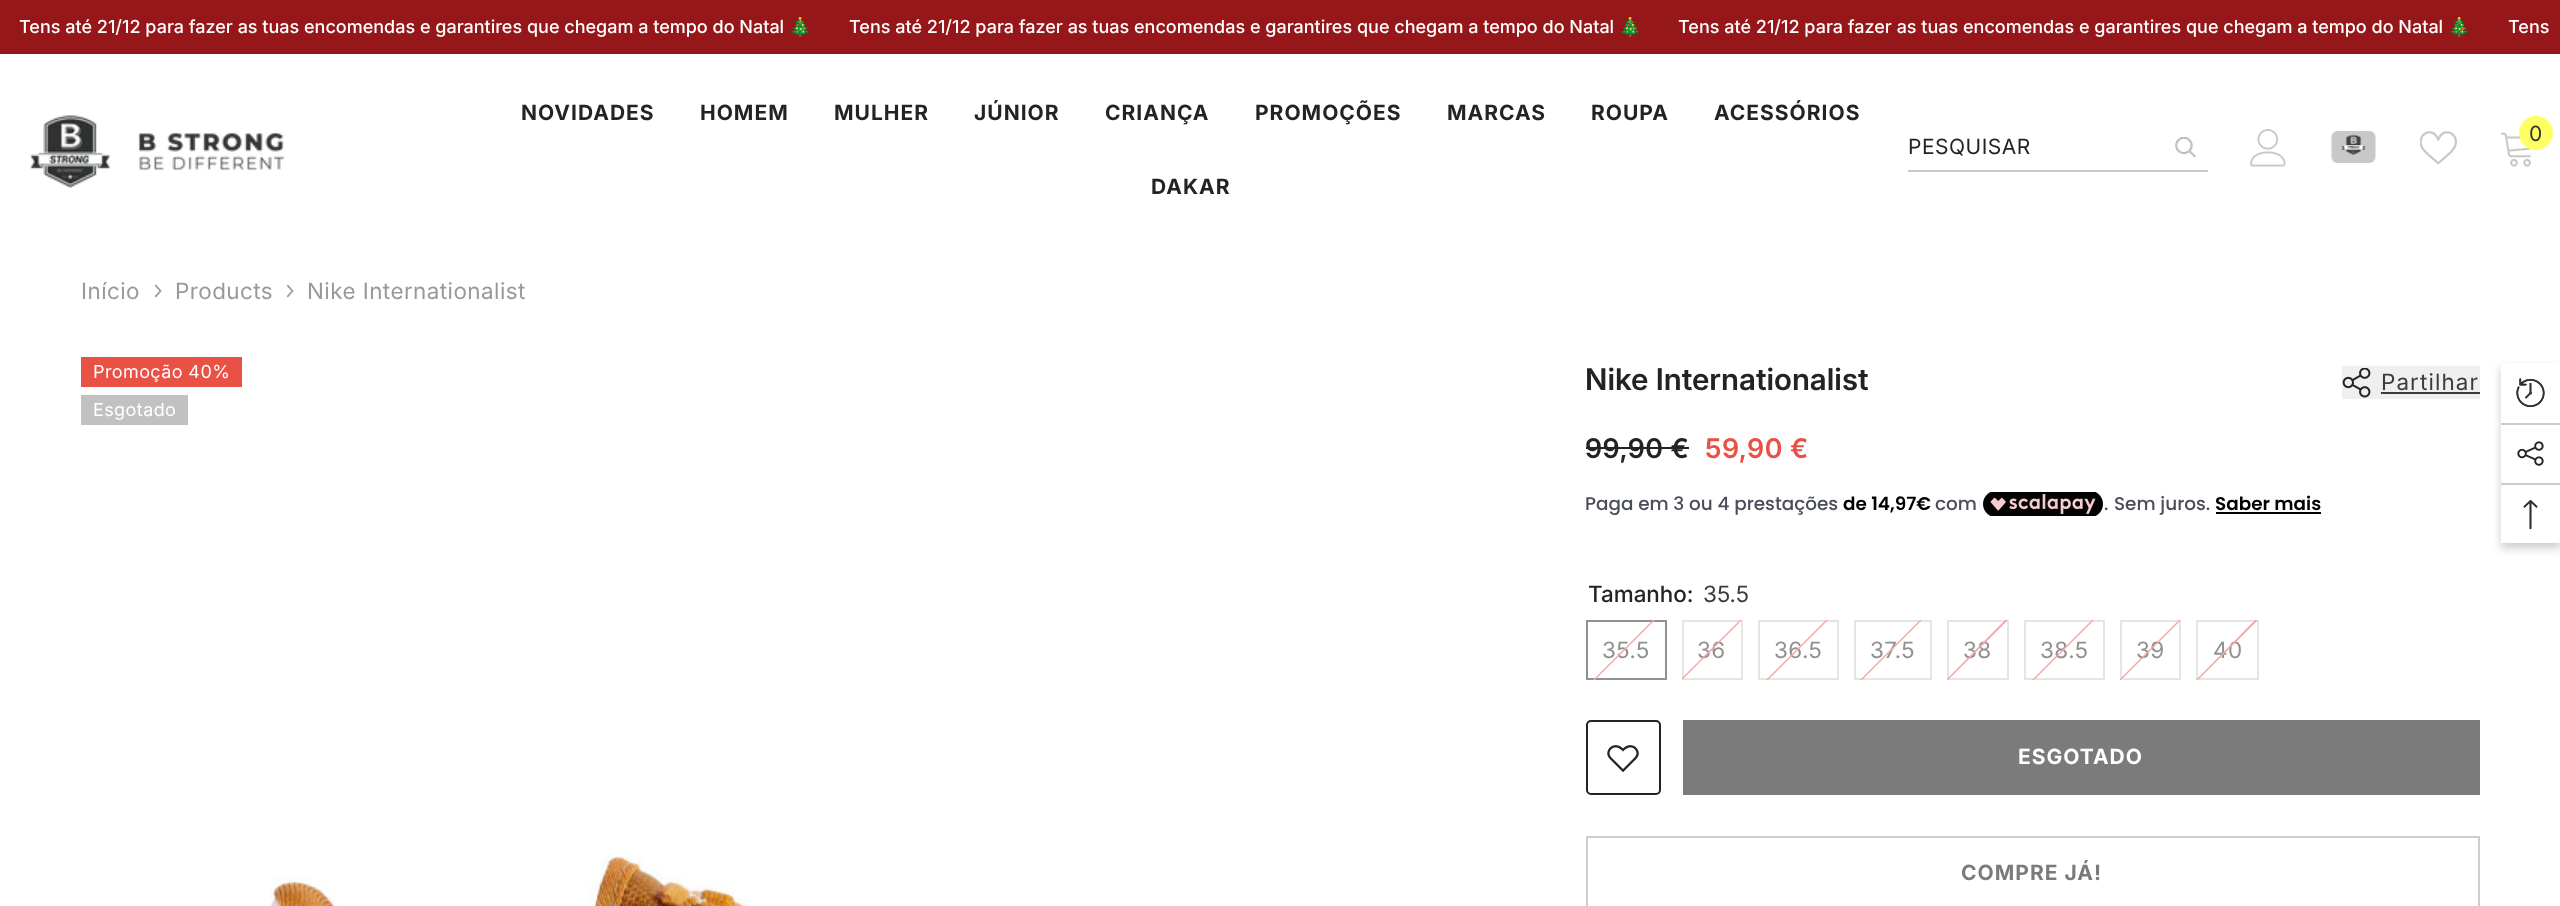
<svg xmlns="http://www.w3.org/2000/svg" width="2560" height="906">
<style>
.a{font:500 18px Inter;fill:#fff}
.b{font:18px Noto Color Emoji;fill:#fff}
.c{font:bold 21px Inter;letter-spacing:1px;fill:#232323}
.d{font:21px 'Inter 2';letter-spacing:0.5px;fill:#232323}
.e{font:21px 'Inter 2';fill:#323232}
.f{font:22.5px Inter;letter-spacing:0.45px;fill:#999}
.g{font:18px 'Inter 2';letter-spacing:0.4px;fill:#fff}
.h{font:600 30px Inter;fill:#232323}
.i{font:22.5px Inter;letter-spacing:1.1px;fill:#3c3c3c}
.j{font:600 27px 'Inter 2';letter-spacing:0.5px;fill:#232323}
.k{font:600 27px 'Inter 2';letter-spacing:0.5px;fill:#e95144}
.l{font:500 18.4px Poppins;fill:#4a4d5a}
.m{font:600 18.4px Poppins;fill:#000}
.n{font:500 22.5px 'Inter 2';fill:#232323}
.o{font:22.5px Inter;fill:#3c3c3c}
.p{font:22.5px Inter;letter-spacing:0.45px;fill:#919191}
.q{font:bold 21px Inter;letter-spacing:1px;fill:#fff}
.r{font:bold 21px Inter;letter-spacing:1px;fill:#7b7b7b}
</style>
<defs>
<clipPath id="clip1"><path d="M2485 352h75v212h-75zm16 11h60v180h-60z" clip-rule="evenodd"/></clipPath>
<clipPath id="clip2"><path d="M1586 620h81v60H1586z"/></clipPath>
<clipPath id="clip3"><path d="M1682 620h61v60H1682z"/></clipPath>
<clipPath id="clip4"><path d="M1758 620h81v60H1758z"/></clipPath>
<clipPath id="clip5"><path d="M1854 620h78v60H1854z"/></clipPath>
<clipPath id="clip6"><path d="M1947 620h62v60H1947z"/></clipPath>
<clipPath id="clip7"><path d="M2024 620h81v60H2024z"/></clipPath>
<clipPath id="clip8"><path d="M2120 620h61v60H2120z"/></clipPath>
<clipPath id="clip9"><path d="M2196 620h63v60H2196z"/></clipPath>
</defs>
<rect width="100%" height="100%" fill="#fff"/>
<path fill="#951719" d="M0 0h2560v54H0z"/>
<image href="1.png" x="30" y="115" width="255" height="73"/>
<path fill="#c8c8c8" d="M1908 170h300v2H1908z"/>
<image href="2.png" x="2175" y="137" width="21" height="21"/>
<image href="3.png" x="2250" y="129" width="36" height="38"/>
<image href="4.png" x="2331" y="131" width="45" height="32"/>
<image href="5.png" x="2420" y="131" width="37" height="34"/>
<image href="6.png" x="2500" y="132" width="31" height="35"/>
<circle fill="#ffff64" cx="2536" cy="133" r="17"/>
<image href="7.png" x="154" y="284" width="8" height="14"/>
<image href="7.png" x="286" y="284" width="8" height="14"/>
<path fill="#e95144" d="M81 357h161v30H81z"/>
<path fill="#c1c1c1" d="M81 395h107v30H81z"/>
<image href="8.png" x="270" y="855" width="478" height="51"/>
<path fill="#efefef" d="M2342 366h138v33H2342z"/>
<image href="9.png" x="2342" y="368" width="29" height="30"/>
<path fill="#3c3c3c" d="M2381 392h99v2H2381z"/>
<path fill="#232323" d="M1586 447h103v2H1586z"/>
<image href="10.png" x="1983" y="492" width="120" height="24"/>
<path fill="#000" d="M2216 512h105v2H2216z"/>
<path fill="none" stroke="#919191" stroke-width="2" d="M1587 621h79v58H1587z"/>
<path fill="none" stroke="#e5e5e5" stroke-width="2" d="M1683 621h59v58H1683z"/>
<path fill="none" stroke="#e5e5e5" stroke-width="2" d="M1759 621h79v58H1759z"/>
<path fill="none" stroke="#e5e5e5" stroke-width="2" d="M1855 621h76v58H1855z"/>
<path fill="none" stroke="#e5e5e5" stroke-width="2" d="M1948 621h60v58H1948z"/>
<path fill="none" stroke="#e5e5e5" stroke-width="2" d="M2025 621h79v58H2025z"/>
<path fill="none" stroke="#e5e5e5" stroke-width="2" d="M2121 621h59v58H2121z"/>
<path fill="none" stroke="#e5e5e5" stroke-width="2" d="M2197 621h61v58H2197z"/>
<rect fill="none" stroke="#232323" stroke-width="2" x="1587" y="721" width="73" height="73" rx="4"/>
<image href="11.png" x="1607" y="745" width="32" height="28"/>
<path fill="#7b7b7b" d="M1683 720h797v75H1683z"/>
<path fill="none" stroke="#cdcdcd" stroke-width="2" d="M1587 837h892v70H1587z"/>
<g clip-path="url(#clip1)">
<path fill="#00000033" filter="blur(5px)" d="M2501 368h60v180H2501z"/>
</g>
<image href="12.png" x="2516" y="378" width="29" height="30"/>
<path fill="#ccc" d="M2501 423h59v2H2501z"/>
<image href="13.png" x="2517" y="441" width="27" height="25"/>
<path fill="#ccc" d="M2501 483h59v2H2501z"/>
<image href="14.png" x="2523" y="500" width="15" height="30"/>
<text class="a" x="19" y="33">Tens até 21/12 para fazer as tuas encomendas e garantires que chegam a tempo do Natal</text>
<text class="b" x="789" y="33">🎄</text>
<text class="a" x="849" y="33">Tens até 21/12 para fazer as tuas encomendas e garantires que chegam a tempo do Natal</text>
<text class="b" x="1619" y="33">🎄</text>
<text class="a" x="1678" y="33">Tens até 21/12 para fazer as tuas encomendas e garantires que chegam a tempo do Natal</text>
<text class="b" x="2448" y="33">🎄</text>
<text class="a" x="2508" y="33">Tens</text>
<text class="c" x="521" y="120">NOVIDADES</text>
<text class="c" x="700" y="120">HOMEM</text>
<text class="c" x="834" y="120">MULHER</text>
<text class="c" x="974" y="120">JÚNIOR</text>
<text class="c" x="1105" y="120">CRIANÇA</text>
<text class="c" x="1255" y="120">PROMOÇÕES</text>
<text class="c" x="1447" y="120">MARCAS</text>
<text class="c" x="1591" y="120">ROUPA</text>
<text class="c" x="1714" y="120">ACESSÓRIOS</text>
<text class="c" x="1151" y="194">DAKAR</text>
<text class="d" x="1908" y="154">PESQUISAR</text>
<text class="e" x="2529" y="141">0</text>
<text class="f" x="81" y="299">Início</text>
<text class="f" x="175" y="299">Products</text>
<text class="f" x="307" y="299">Nike Internationalist</text>
<text class="g" x="93" y="378">Promoção 40%</text>
<text class="g" x="93" y="416">Esgotado</text>
<text class="h" x="1585" y="390">Nike Internationalist</text>
<text class="i" x="2381" y="390">Partilhar</text>
<text class="j" x="1585" y="458">99,90 €</text>
<text class="k" x="1705" y="458">59,90 €</text>
<text class="l" x="1585" y="510">Paga em 3 ou 4 prestações</text>
<text class="m" x="1843" y="510">de 14,97€</text>
<text class="l" x="1935" y="510">com</text>
<text class="l" x="2104" y="510">.</text>
<text class="l" x="2114" y="510">Sem juros.</text>
<text class="m" x="2215" y="510">Saber mais</text>
<text class="n" x="1588" y="602">Tamanho:</text>
<text class="o" x="1703" y="602">35.5</text>
<text class="p" x="1602" y="658">35.5</text>
<g clip-path="url(#clip2)">
<path fill="#f4a8a2" d="M1586 687l78-78l1 1l-78 78z"/>
</g>
<text class="p" x="1697" y="658">36</text>
<g clip-path="url(#clip3)">
<path fill="#f4a8a2" d="M1679 681l65-65l1 1l-65 65z"/>
</g>
<text class="p" x="1774" y="658">36.5</text>
<g clip-path="url(#clip4)">
<path fill="#f4a8a2" d="M1758 688l79-79l1 1l-79 79z"/>
</g>
<text class="p" x="1870" y="658">37.5</text>
<g clip-path="url(#clip5)">
<path fill="#f4a8a2" d="M1854 686l76-76l1 1l-76 76z"/>
</g>
<text class="p" x="1963" y="658">38</text>
<g clip-path="url(#clip6)">
<path fill="#f4a8a2" d="M1945 681l64-65l2 1l-65 65z"/>
</g>
<text class="p" x="2040" y="658">38.5</text>
<g clip-path="url(#clip7)">
<path fill="#f4a8a2" d="M2024 688l79-79l1 1l-79 79z"/>
</g>
<text class="p" x="2136" y="658">39</text>
<g clip-path="url(#clip8)">
<path fill="#f4a8a2" d="M2118 681l65-65l1 1l-65 65z"/>
</g>
<text class="p" x="2213" y="658">40</text>
<g clip-path="url(#clip9)">
<path fill="#f4a8a2" d="M2195 681l65-66l1 2l-65 65z"/>
</g>
<text class="q" x="2018" y="764">ESGOTADO</text>
<text class="r" x="1961" y="880">COMPRE JÁ!</text>
</svg>
